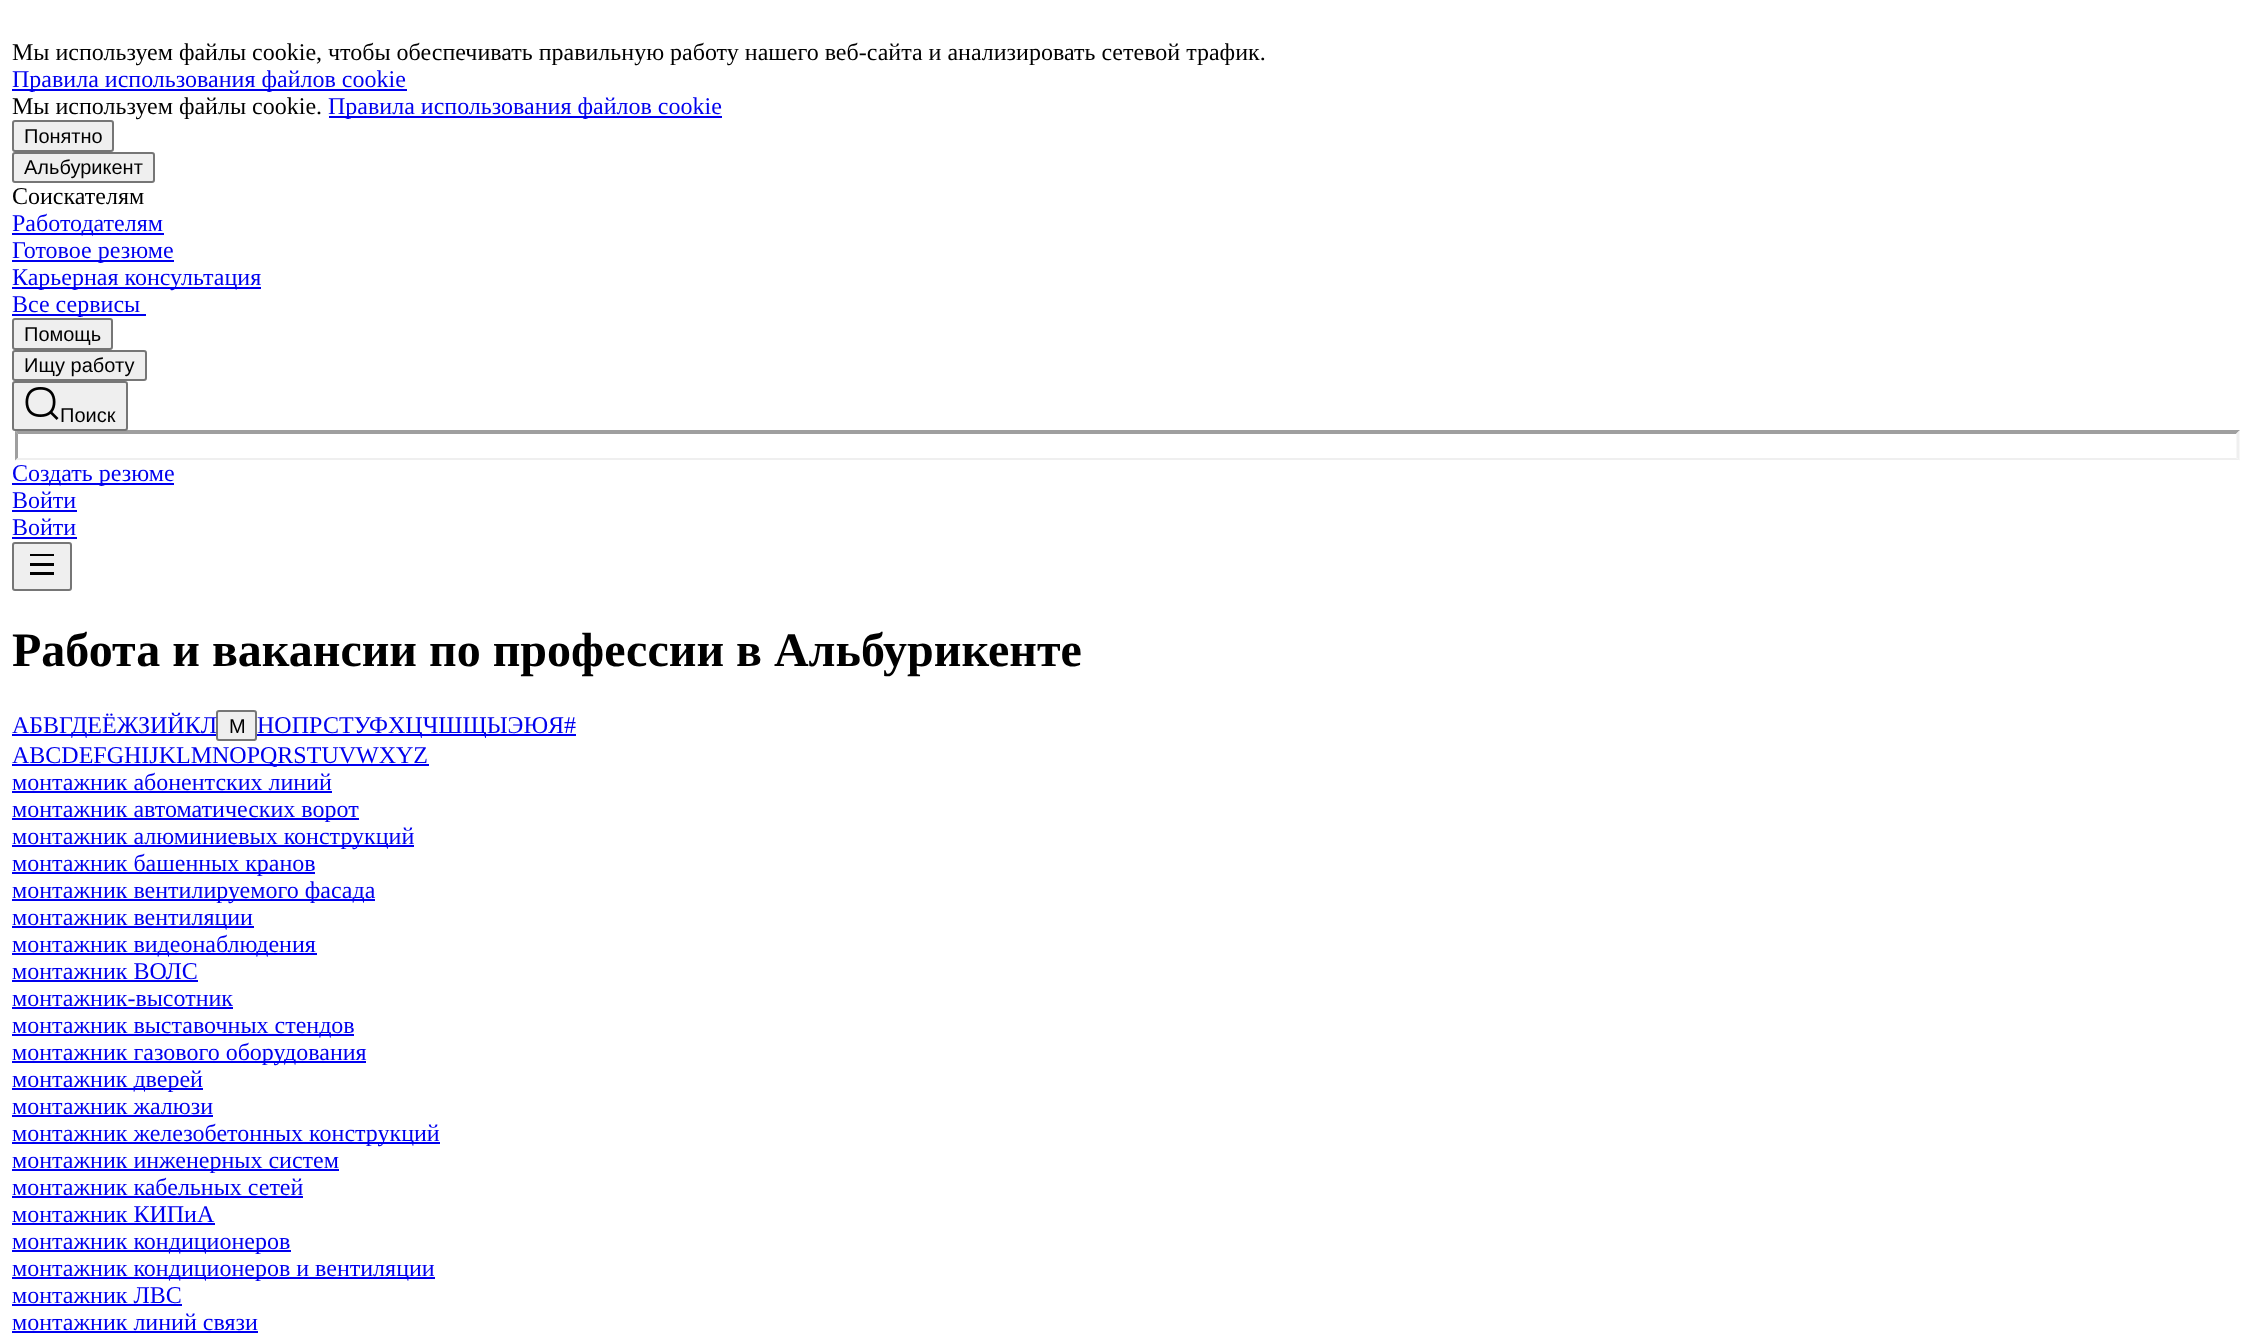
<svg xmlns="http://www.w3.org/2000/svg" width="2254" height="1334">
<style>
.a{font:24px Liberation Serif;fill:#000}
.b{font:24px Liberation Serif;fill:#00e}
.c{font:20px Liberation Sans;fill:#000}
.d{font:bold 48px Liberation Serif;fill:#000}
</style>
<rect width="100%" height="100%" fill="#fff"/>
<path fill="#00e" d="M12 89h395v2H12z"/>
<path fill="#00e" d="M329 116h393v2H329z"/>
<rect fill="#efefef" stroke="#767676" stroke-width="2" x="13" y="121" width="100" height="30" rx="2"/>
<rect fill="#efefef" stroke="#767676" stroke-width="2" x="13" y="153" width="141" height="29" rx="2"/>
<path fill="#00e" d="M12 233h152v2H12z"/>
<path fill="#00e" d="M12 260h162v2H12z"/>
<path fill="#00e" d="M12 287h249v2H12z"/>
<path fill="#00e" d="M12 314h134v2H12z"/>
<rect fill="#efefef" stroke="#767676" stroke-width="2" x="13" y="319" width="99" height="30" rx="2"/>
<rect fill="#efefef" stroke="#767676" stroke-width="2" x="13" y="351" width="133" height="29" rx="2"/>
<path fill="#9f9f9f" d="M15 430h2225l-4 4h-2218z"/>
<path fill="#efefef" d="M2239.5 430.5v30l-3-3v-24z"/>
<path fill="#efefef" d="M2240 460h-2225l3-2h2218z"/>
<path fill="#9f9f9f" d="M15 460.5v-30l3 3v24z"/>
<rect fill="#efefef" stroke="#767676" stroke-width="2" x="13" y="382" width="114" height="48" rx="2"/>
<image href="1.png" x="25" y="387" width="34" height="33"/>
<path fill="#00e" d="M12 483h162v2H12z"/>
<path fill="#00e" d="M12 510h65v2H12z"/>
<path fill="#00e" d="M12 537h65v2H12z"/>
<rect fill="#efefef" stroke="#767676" stroke-width="2" x="13" y="543" width="58" height="47" rx="2"/>
<path fill="#000" d="M30 554h24v2H30z"/>
<path fill="#000" d="M30 563h24v3H30z"/>
<path fill="#000" d="M30 572h24v3H30z"/>
<path fill="#00e" d="M12 734h126v2H12z"/>
<path fill="#00e" d="M138 734h78v2H138z"/>
<rect fill="#efefef" stroke="#767676" stroke-width="2" x="217" y="711" width="39" height="29" rx="2"/>
<path fill="#00e" d="M257 734h319v2H257z"/>
<path fill="#00e" d="M12 764h309v2H12z"/>
<path fill="#00e" d="M321 764h108v2H321z"/>
<path fill="#00e" d="M12 791h320v2H12z"/>
<path fill="#00e" d="M12 818h347v2H12z"/>
<path fill="#00e" d="M12 845h402v2H12z"/>
<path fill="#00e" d="M12 872h303v2H12z"/>
<path fill="#00e" d="M12 899h363v2H12z"/>
<path fill="#00e" d="M12 926h242v2H12z"/>
<path fill="#00e" d="M12 953h305v2H12z"/>
<path fill="#00e" d="M12 980h186v2H12z"/>
<path fill="#00e" d="M12 1007h221v2H12z"/>
<path fill="#00e" d="M12 1034h342v2H12z"/>
<path fill="#00e" d="M12 1061h354v2H12z"/>
<path fill="#00e" d="M12 1088h191v2H12z"/>
<path fill="#00e" d="M12 1115h201v2H12z"/>
<path fill="#00e" d="M12 1142h428v2H12z"/>
<path fill="#00e" d="M12 1169h327v2H12z"/>
<path fill="#00e" d="M12 1196h291v2H12z"/>
<path fill="#00e" d="M12 1223h203v2H12z"/>
<path fill="#00e" d="M12 1250h279v2H12z"/>
<path fill="#00e" d="M12 1277h423v2H12z"/>
<path fill="#00e" d="M12 1304h170v2H12z"/>
<path fill="#00e" d="M12 1331h246v2H12z"/>
<text class="a" x="12" y="60">Мы используем файлы cookie, чтобы обеспечивать правильную работу нашего веб-сайта и анализировать сетевой трафик.</text>
<text class="b" x="12" y="87">Правила использования файлов cookie</text>
<text class="a" x="12" y="114">Мы используем файлы cookie.</text>
<text class="b" x="328" y="114">Правила использования файлов cookie</text>
<text class="c" x="24" y="143">Понятно</text>
<text class="c" x="24" y="174">Альбурикент</text>
<text class="a" x="12" y="204">Соискателям</text>
<text class="b" x="12" y="231">Работодателям</text>
<text class="b" x="12" y="258">Готовое резюме</text>
<text class="b" x="12" y="285">Карьерная консультация</text>
<text class="b" x="12" y="312">Все сервисы</text>
<text class="c" x="24" y="341">Помощь</text>
<text class="c" x="24" y="372">Ищу работу</text>
<text class="c" x="60" y="422">Поиск</text>
<text class="b" x="12" y="481">Создать резюме</text>
<text class="b" x="12" y="508">Войти</text>
<text class="b" x="12" y="535">Войти</text>
<text class="d" x="12" y="666">Работа и вакансии по профессии в Альбурикенте</text>
<text class="b" x="12" y="733">АБВГ</text>
<text class="b" x="71" y="733">ДЕЁЖ</text>
<text class="b" x="138" y="733">ЗИЙКЛ</text>
<text class="c" x="229" y="733">М</text>
<text class="b" x="257" y="733">НОПР</text>
<text class="b" x="323" y="733">СТУ</text>
<text class="b" x="369" y="733">ФХЦЧШЩЫЭЮЯ#</text>
<text class="b" x="12" y="763">ABCDEFGHIJKLMNOPQRSTUVWXYZ</text>
<text class="b" x="12" y="790">монтажник абонентских линий</text>
<text class="b" x="12" y="817">монтажник автоматических ворот</text>
<text class="b" x="12" y="844">монтажник алюминиевых конструкций</text>
<text class="b" x="12" y="871">монтажник башенных кранов</text>
<text class="b" x="12" y="898">монтажник вентилируемого фасада</text>
<text class="b" x="12" y="925">монтажник вентиляции</text>
<text class="b" x="12" y="952">монтажник видеонаблюдения</text>
<text class="b" x="12" y="979">монтажник ВОЛС</text>
<text class="b" x="12" y="1006">монтажник-высотник</text>
<text class="b" x="12" y="1033">монтажник выставочных стендов</text>
<text class="b" x="12" y="1060">монтажник газового оборудования</text>
<text class="b" x="12" y="1087">монтажник дверей</text>
<text class="b" x="12" y="1114">монтажник жалюзи</text>
<text class="b" x="12" y="1141">монтажник железобетонных конструкций</text>
<text class="b" x="12" y="1168">монтажник инженерных систем</text>
<text class="b" x="12" y="1195">монтажник кабельных сетей</text>
<text class="b" x="12" y="1222">монтажник КИПиА</text>
<text class="b" x="12" y="1249">монтажник кондиционеров</text>
<text class="b" x="12" y="1276">монтажник кондиционеров и вентиляции</text>
<text class="b" x="12" y="1303">монтажник ЛВС</text>
<text class="b" x="12" y="1330">монтажник линий связи</text>
</svg>
